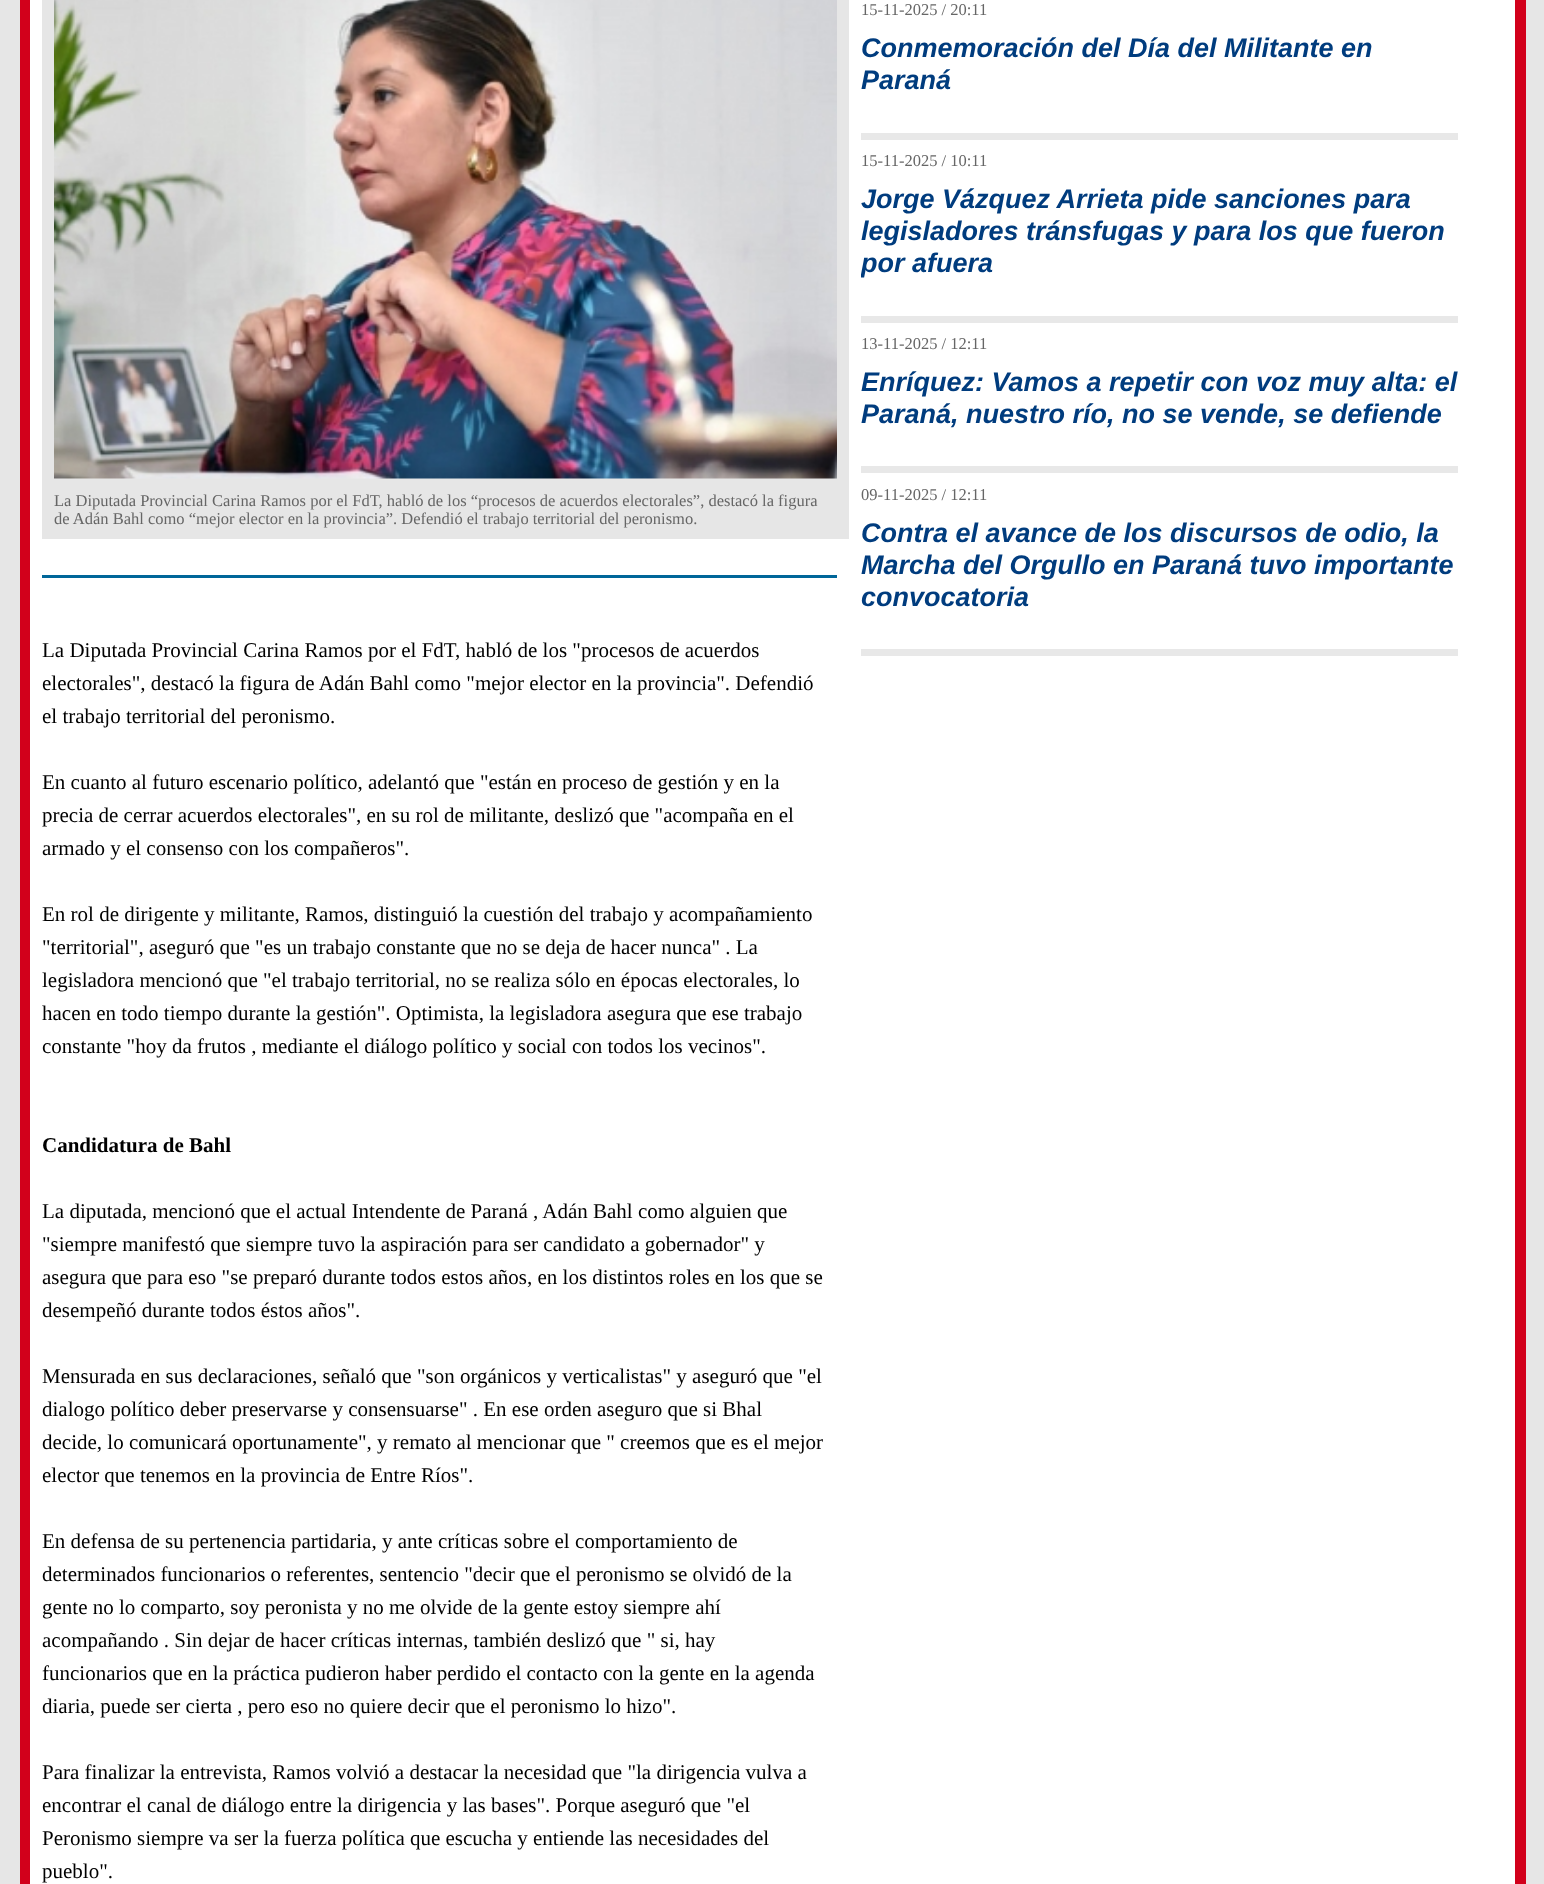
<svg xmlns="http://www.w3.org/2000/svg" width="1544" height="1884">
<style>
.a{font:16.5px Liberation Serif;fill:#666}
.b{font:italic bold 27px Liberation Sans;fill:#003c7e}
.c{font:21px Liberation Serif;fill:#000}
.d{font:bold 21px Liberation Serif;fill:#000}
</style>
<defs>
<clipPath id="clip1"><path d="M861 185h597v96H861z"/></clipPath>
</defs>
<rect width="100%" height="100%" fill="#e6e6e6"/>
<path fill="#fff" d="M30 0h1485v1884H30z"/>
<path fill="#d2001b" d="M1515 0h11v1884H1515z"/>
<path fill="#d2001b" d="M20 0h10v1884H20z"/>
<path fill="#e8e8e8" d="M861 133h597v7H861z"/>
<path fill="#e8e8e8" d="M861 316h597v7H861z"/>
<path fill="#e8e8e8" d="M861 466h597v7H861z"/>
<path fill="#e8e8e8" d="M861 649h597v7H861z"/>
<path fill="#e6e6e6" d="M42 0h807v539H42z"/>
<image href="1.png" x="54" y="0" width="783" height="479"/>
<path fill="#069" d="M42 575h795v3H42z"/>
<text class="a" x="861" y="15">15-11-2025 / 20:11</text>
<text class="b" x="861" y="57">Conmemoración del Día del Militante en</text>
<text class="b" x="861" y="89">Paraná</text>
<text class="a" x="861" y="166">15-11-2025 / 10:11</text>
<text class="b" x="861" y="208">Jorge Vázquez Arrieta pide sanciones para</text>
<text class="b" x="861" y="240">legisladores tránsfugas y para los que fueron</text>
<g clip-path="url(#clip1)">
<text class="b" x="861" y="272">por afuera</text>
</g>
<text class="a" x="861" y="349">13-11-2025 / 12:11</text>
<text class="b" x="861" y="391">Enríquez: Vamos a repetir con voz muy alta: el</text>
<text class="b" x="861" y="423">Paraná, nuestro río, no se vende, se defiende</text>
<text class="a" x="861" y="500">09-11-2025 / 12:11</text>
<text class="b" x="861" y="542">Contra el avance de los discursos de odio, la</text>
<text class="b" x="861" y="574">Marcha del Orgullo en Paraná tuvo importante</text>
<text class="b" x="861" y="606">convocatoria</text>
<text class="a" x="54" y="506">La Diputada Provincial Carina Ramos por el FdT, habló de los “procesos de acuerdos electorales”, destacó la figura</text>
<text class="a" x="54" y="524">de Adán Bahl como “mejor elector en la provincia”. Defendió el trabajo territorial del peronismo.</text>
<text class="c" x="42" y="657">La Diputada Provincial Carina Ramos por el FdT, habló de los "procesos de acuerdos</text>
<text class="c" x="42" y="690">electorales", destacó la figura de Adán Bahl como "mejor elector en la provincia". Defendió</text>
<text class="c" x="42" y="723">el trabajo territorial del peronismo.</text>
<text class="c" x="42" y="789">En cuanto al futuro escenario político, adelantó que "están en proceso de gestión y en la</text>
<text class="c" x="42" y="822">precia de cerrar acuerdos electorales", en su rol de militante, deslizó que "acompaña en el</text>
<text class="c" x="42" y="855">armado y el consenso con los compañeros".</text>
<text class="c" x="42" y="921">En rol de dirigente y militante, Ramos, distinguió la cuestión del trabajo y acompañamiento</text>
<text class="c" x="42" y="954">"territorial", aseguró que "es un trabajo constante que no se deja de hacer nunca" . La</text>
<text class="c" x="42" y="987">legisladora mencionó que "el trabajo territorial, no se realiza sólo en épocas electorales, lo</text>
<text class="c" x="42" y="1020">hacen en todo tiempo durante la gestión". Optimista, la legisladora asegura que ese trabajo</text>
<text class="c" x="42" y="1053">constante "hoy da frutos , mediante el diálogo político y social con todos los vecinos".</text>
<text class="d" x="42" y="1152">Candidatura de Bahl</text>
<text class="c" x="42" y="1218">La diputada, mencionó que el actual Intendente de Paraná , Adán Bahl como alguien que</text>
<text class="c" x="42" y="1251">"siempre manifestó que siempre tuvo la aspiración para ser candidato a gobernador" y</text>
<text class="c" x="42" y="1284">asegura que para eso "se preparó durante todos estos años, en los distintos roles en los que se</text>
<text class="c" x="42" y="1317">desempeñó durante todos éstos años".</text>
<text class="c" x="42" y="1383">Mensurada en sus declaraciones, señaló que "son orgánicos y verticalistas" y aseguró que "el</text>
<text class="c" x="42" y="1416">dialogo político deber preservarse y consensuarse" . En ese orden aseguro que si Bhal</text>
<text class="c" x="42" y="1449">decide, lo comunicará oportunamente", y remato al mencionar que " creemos que es el mejor</text>
<text class="c" x="42" y="1482">elector que tenemos en la provincia de Entre Ríos".</text>
<text class="c" x="42" y="1548">En defensa de su pertenencia partidaria, y ante críticas sobre el comportamiento de</text>
<text class="c" x="42" y="1581">determinados funcionarios o referentes, sentencio "decir que el peronismo se olvidó de la</text>
<text class="c" x="42" y="1614">gente no lo comparto, soy peronista y no me olvide de la gente estoy siempre ahí</text>
<text class="c" x="42" y="1647">acompañando . Sin dejar de hacer críticas internas, también deslizó que " si, hay</text>
<text class="c" x="42" y="1680">funcionarios que en la práctica pudieron haber perdido el contacto con la gente en la agenda</text>
<text class="c" x="42" y="1713">diaria, puede ser cierta , pero eso no quiere decir que el peronismo lo hizo".</text>
<text class="c" x="42" y="1779">Para finalizar la entrevista, Ramos volvió a destacar la necesidad que "la dirigencia vulva a</text>
<text class="c" x="42" y="1812">encontrar el canal de diálogo entre la dirigencia y las bases". Porque aseguró que "el</text>
<text class="c" x="42" y="1845">Peronismo siempre va ser la fuerza política que escucha y entiende las necesidades del</text>
<text class="c" x="42" y="1878">pueblo".</text>
</svg>
